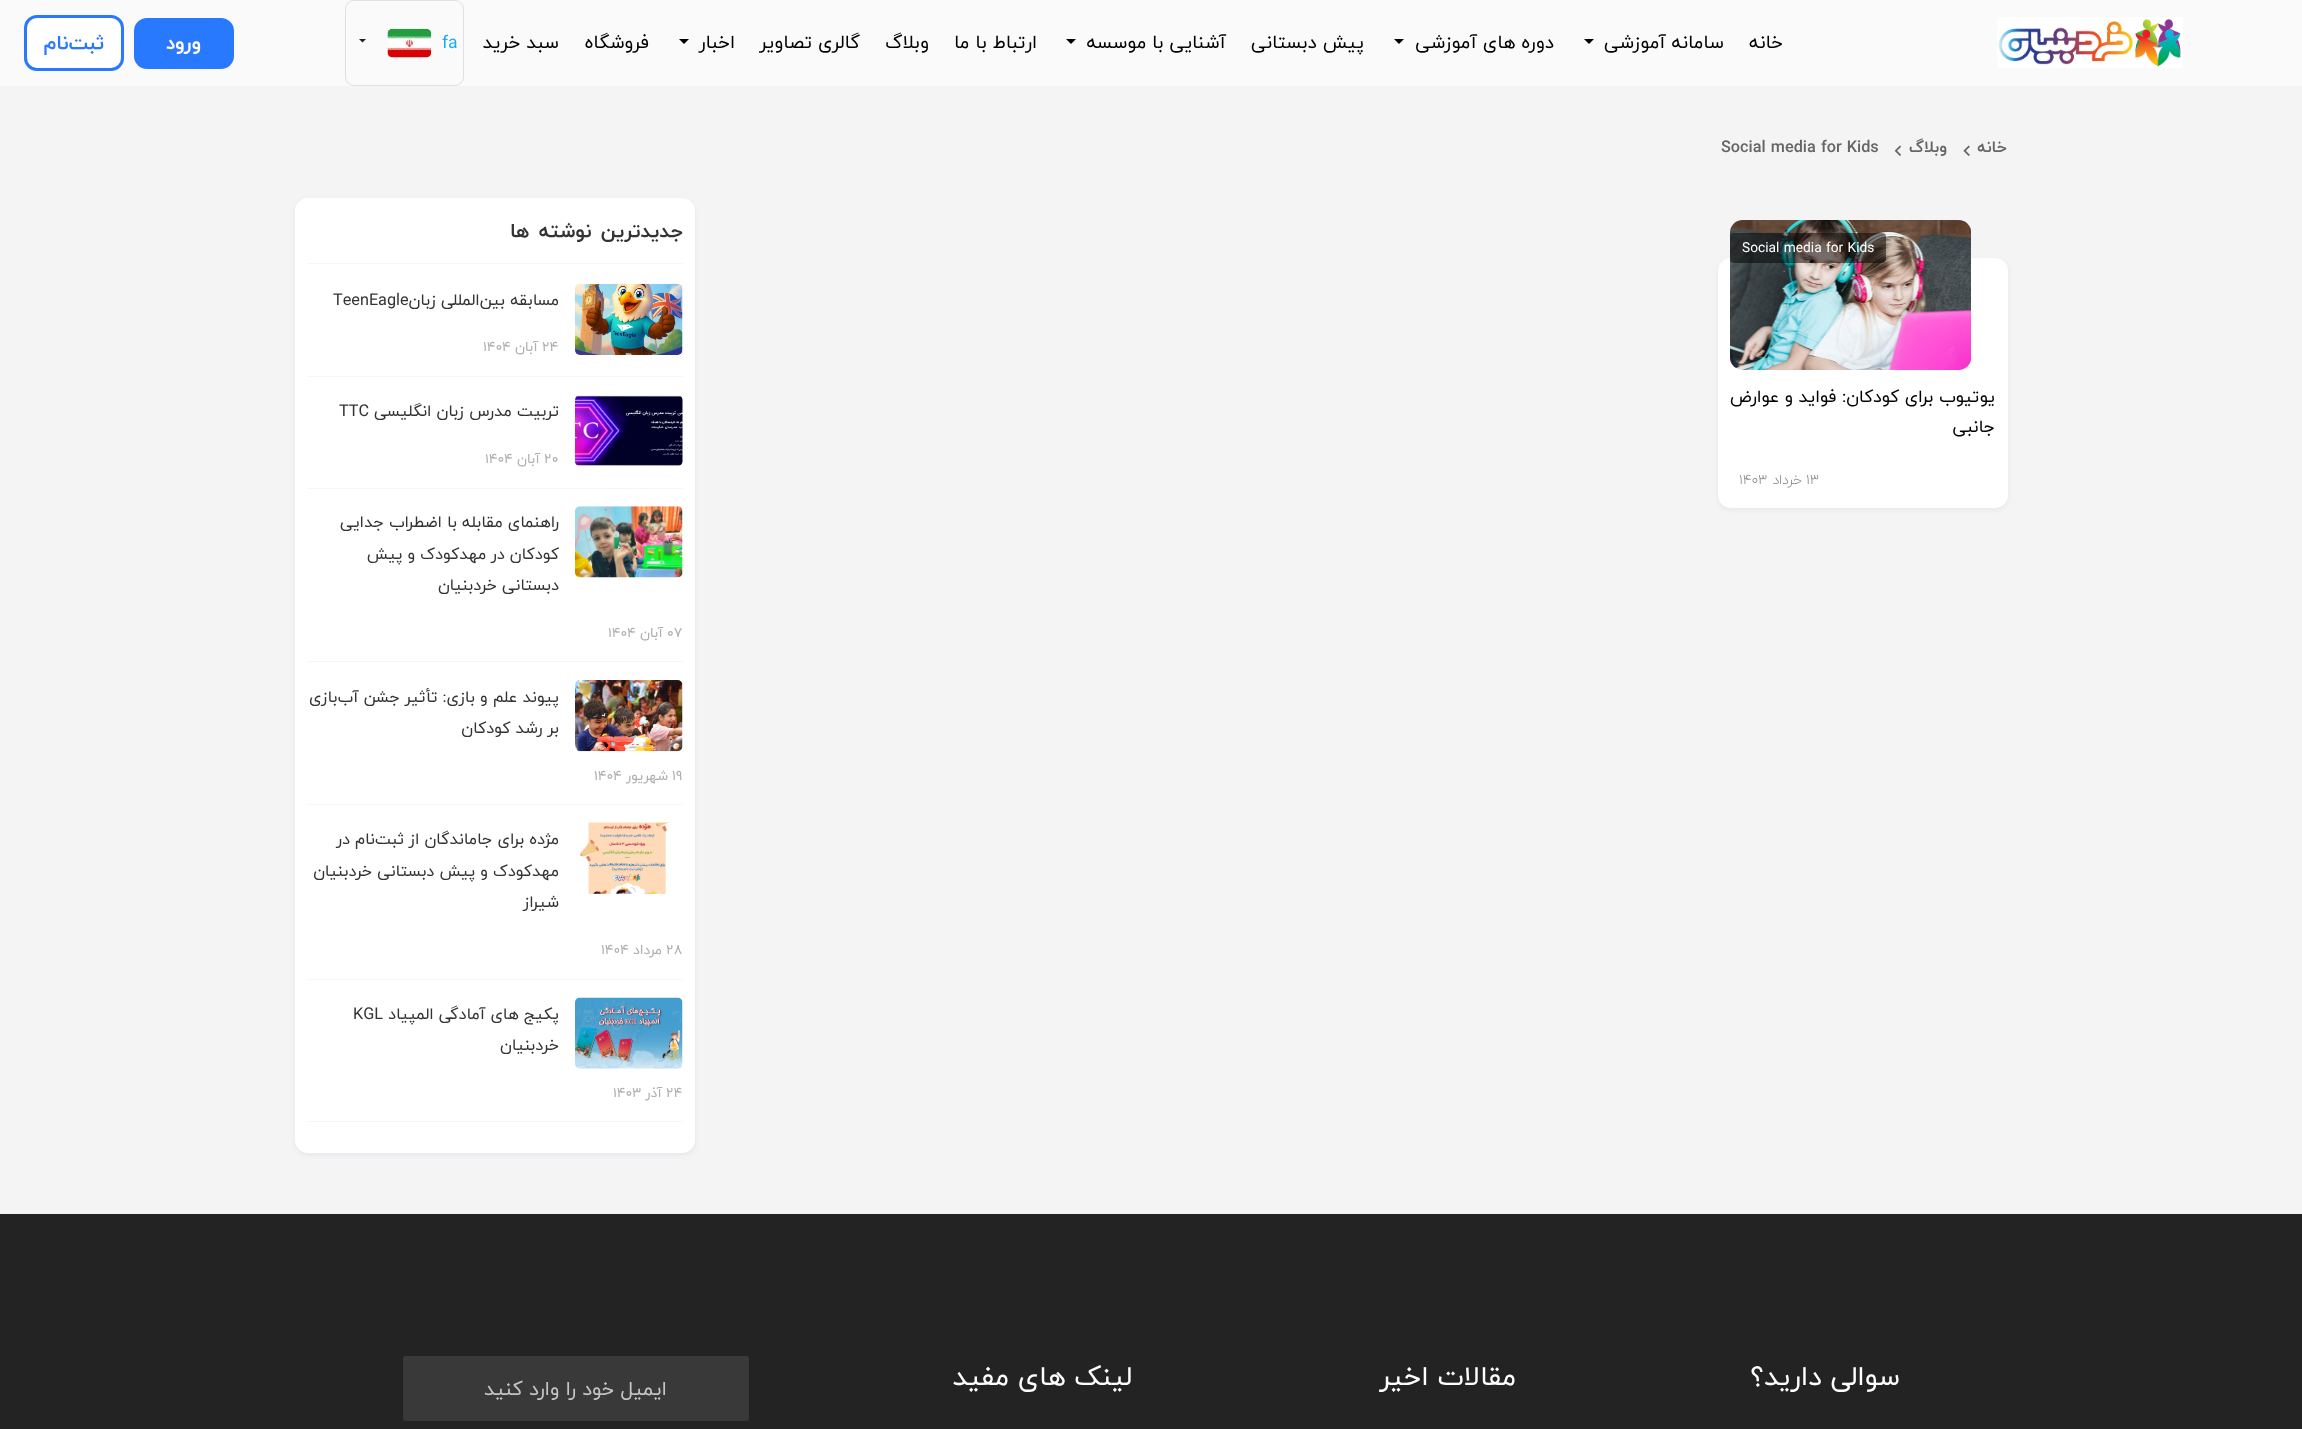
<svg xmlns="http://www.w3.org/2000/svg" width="2302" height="1429">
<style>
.a{font:18.75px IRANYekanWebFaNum;direction:rtl;fill:#000}
.b{font:17.5px IRANYekanWebFaNum;fill:#1eaaf1}
.c{font:bold 20px IRANYekanWebFaNum;direction:rtl;fill:#fff}
.d{font:bold 20px IRANYekanWebFaNum;direction:rtl;fill:#2979ff}
.e{font:bold 16.25px IRANYekanWebFaNum;direction:rtl;fill:#666}
.f{font:bold 16.25px IRANYekanWebFaNum;fill:#666}
.g{font:13.75px IRANYekanWebFaNum;fill:#fff}
.h{font:17.5px IRANYekanWebFaNum;direction:rtl;fill:#000}
.i{font:300 13.75px IRANYekanWebFaNum;fill:#808080}
.j{font:300 13.75px IRANYekanWebFaNum;direction:rtl;fill:#808080}
.k{font:bold 20px IRANYekanWebFaNum;letter-spacing:-0.6px;direction:rtl;fill:#333}
.l{font:16.25px IRANYekanWebFaNum;direction:rtl;fill:#333}
.m{font:16.25px IRANYekanWebFaNum;fill:#333}
.n{font:13.75px IRANYekanWebFaNum;fill:#aeaeae}
.o{font:13.75px IRANYekanWebFaNum;direction:rtl;fill:#aeaeae}
.p{font:27.5px IRANYekanWebFaNum;direction:rtl;fill:#fff}
.q{font:20px IRANYekanWebFaNum;direction:rtl;fill:#c4c4c4}
</style>
<rect width="100%" height="100%" fill="#f4f4f4"/>
<path fill="#fafafa" d="M0 0h2302v86H0z"/>
<image href="1.png" x="1997" y="17" width="186" height="51"/>
<path fill="#000" d="M1584 39h10l-5 5z"/>
<path fill="#000" d="M1394 39h10l-5 5z"/>
<path fill="#000" d="M1066 39h10l-5 5z"/>
<path fill="#000" d="M679 39h10l-5 5z"/>
<rect fill="none" stroke="#e0e0e2" x="345.5" y="0.5" width="118" height="85" rx="8.5"/>
<image href="2.png" x="387" y="28" width="45" height="30"/>
<path fill="#212121" d="M359 39h7l-3.5 3.5z"/>
<rect fill="#2979ff" x="134" y="18" width="100" height="51" rx="13"/>
<rect fill="#fff" stroke="#2979ff" stroke-width="3" x="25.5" y="16.5" width="97" height="53" rx="11.5"/>
<image href="3.png" x="1963" y="145" width="7" height="11"/>
<image href="4.png" x="1894" y="145" width="7" height="11"/>
<rect fill="#7e8eb11f" filter="blur(2.5px)" x="1718" y="260" width="290" height="250" rx="13"/>
<rect fill="#fff" x="1718" y="258" width="290" height="250" rx="13"/>
<image href="5.png" x="1730" y="220" width="241" height="150"/>
<rect fill="#00000080" x="1730" y="233" width="156" height="30" rx="4"/>
<rect fill="#7e8eb11f" filter="blur(2.5px)" x="295" y="200" width="400" height="955" rx="13"/>
<rect fill="#fff" x="295" y="198" width="400" height="955" rx="13"/>
<path fill="#f6f6f6" d="M308 263h375v1H308z"/>
<path fill="#f6f6f6" d="M308 376h375v1H308z"/>
<image href="6.png" x="575" y="283" width="108" height="72"/>
<path fill="#f6f6f6" d="M308 488h375v1H308z"/>
<image href="7.png" x="575" y="395" width="108" height="71"/>
<path fill="#f6f6f6" d="M308 661h375v1H308z"/>
<image href="8.png" x="575" y="506" width="108" height="72"/>
<path fill="#f6f6f6" d="M308 804h375v1H308z"/>
<image href="9.png" x="575" y="680" width="108" height="72"/>
<path fill="#f6f6f6" d="M308 979h375v1H308z"/>
<image href="10.png" x="579" y="822" width="92" height="72"/>
<path fill="#f6f6f6" d="M308 1121h375v1H308z"/>
<image href="11.png" x="575" y="997" width="108" height="72"/>
<path fill="#232323" d="M0 1214h2302v215H0z"/>
<rect fill="#393939" x="403" y="1356" width="346" height="65" rx="2.5"/>
<text class="a" x="1783" y="48">خانه</text>
<text class="a" x="1724" y="48">سامانه آموزشی</text>
<text class="a" x="1554" y="48">دوره های آموزشی</text>
<text class="a" x="1364" y="48">پیش دبستانی</text>
<text class="a" x="1226" y="48">آشنایی با موسسه</text>
<text class="a" x="1037" y="48">ارتباط با ما</text>
<text class="a" x="929" y="48">وبلاگ</text>
<text class="a" x="860" y="48">گالری تصاویر</text>
<text class="a" x="735" y="48">اخبار</text>
<text class="a" x="649" y="48">فروشگاه</text>
<text class="a" x="559" y="48">سبد خرید</text>
<text class="b" x="442" y="48">fa</text>
<text class="c" x="201" y="49">ورود</text>
<text class="d" x="104" y="49">ثبت‌نام</text>
<text class="e" x="2007" y="152">خانه</text>
<text class="e" x="1947" y="152">وبلاگ</text>
<text class="f" x="1721" y="152">Social media for Kids</text>
<text class="g" x="1742" y="252">Social media for Kids</text>
<text class="h" x="1995" y="402">یوتیوب برای کودکان: فواید و عوارض</text>
<text class="h" x="1995" y="432">جانبی</text>
<text class="i" x="1806" y="484">13</text>
<text class="j" x="1802" y="484">خرداد</text>
<text class="i" x="1739" y="484">1403</text>
<text class="k" x="683" y="237" word-spacing="3">جدیدترین نوشته ها</text>
<text class="l" x="559" y="305">مسابقه بین‌المللی زبان</text>
<text class="m" x="333" y="305">TeenEagle</text>
<text class="n" x="542" y="351">24</text>
<text class="o" x="538" y="351">آبان</text>
<text class="n" x="483" y="351">1404</text>
<text class="l" x="559" y="416">تربیت مدرس زبان انگلیسی</text>
<text class="m" x="339" y="416">TTC</text>
<text class="n" x="544" y="463">20</text>
<text class="o" x="540" y="463">آبان</text>
<text class="n" x="485" y="463">1404</text>
<text class="l" x="559" y="527">راهنمای مقابله با اضطراب جدایی</text>
<text class="l" x="559" y="559">کودکان در مهدکودک و پیش</text>
<text class="l" x="559" y="590">دبستانی خردبنیان</text>
<text class="n" x="667" y="637">07</text>
<text class="o" x="663" y="637">آبان</text>
<text class="n" x="608" y="637">1404</text>
<text class="l" x="559" y="702">پیوند علم و بازی: تأثیر جشن آب‌بازی</text>
<text class="l" x="559" y="733">بر رشد کودکان</text>
<text class="n" x="672" y="780">19</text>
<text class="o" x="668" y="780">شهریور</text>
<text class="n" x="594" y="780">1404</text>
<text class="l" x="559" y="844">مژده برای جاماندگان از ثبت‌نام در</text>
<text class="l" x="559" y="876">مهدکودک و پیش دبستانی خردبنیان</text>
<text class="l" x="559" y="907">شیراز</text>
<text class="n" x="666" y="954">28</text>
<text class="o" x="662" y="954">مرداد</text>
<text class="n" x="601" y="954">1404</text>
<text class="l" x="559" y="1019">پکیج های آمادگی المپیاد</text>
<text class="m" x="353" y="1019">KGL</text>
<text class="l" x="559" y="1050">خردبنیان</text>
<text class="n" x="666" y="1097">24</text>
<text class="o" x="662" y="1097">آذر</text>
<text class="n" x="613" y="1097">1403</text>
<text class="p" x="1900" y="1385">سوالی دارید؟</text>
<text class="p" x="1516" y="1385">مقالات اخیر</text>
<text class="p" x="1132" y="1385">لینک های مفید</text>
<text class="q" x="667" y="1395">ایمیل خود را وارد کنید</text>
</svg>
